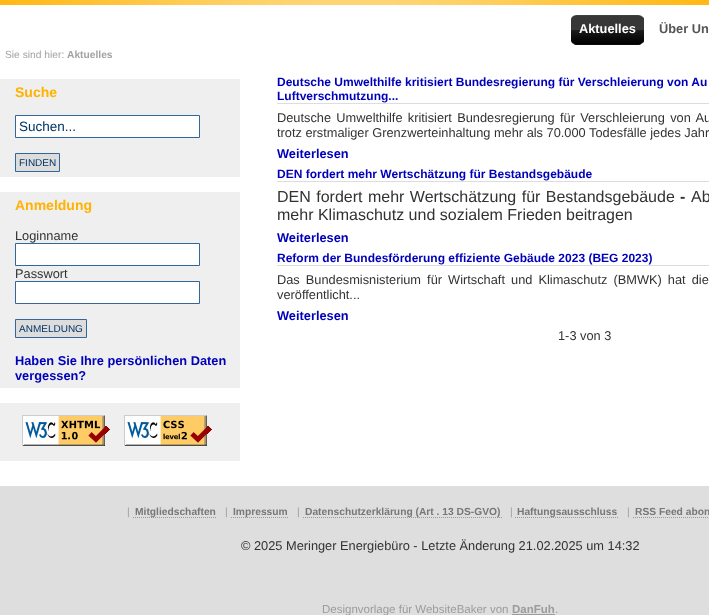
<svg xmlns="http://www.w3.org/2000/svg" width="709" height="615">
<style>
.a{font:bold 12.8px Liberation Sans;fill:#fff}
.b{font:bold 12.8px Liberation Sans;fill:#555}
.c{font:10.25px Liberation Sans;fill:#a3a3a3}
.d{font:bold 10.25px Liberation Sans;fill:#a3a3a3}
.e{font:bold 14px Liberation Sans;fill:#ffb300}
.f{font:13.5px Liberation Sans;fill:#036}
.g{font:10px Liberation Sans;fill:#036}
.h{font:12.8px Liberation Sans;fill:#323232}
.i{font:bold 12.8px Liberation Sans;fill:#00b}
.j{font:bold 12px Liberation Sans;fill:#00b}
.k{font:16px Liberation Sans;fill:#323232}
.l{font:bold 16px Liberation Sans;fill:#323232}
.m{font:10.25px Liberation Sans;fill:#9c9c9c}
.n{font:bold 10.25px Liberation Sans;fill:#777}
.o{font:11.5px Liberation Sans;fill:#9c9c9c}
.p{font:bold 11.5px Liberation Sans;fill:#9c9c9c}
</style>
<rect width="100%" height="100%" fill="#fff"/>
<image href="1.png" x="0" y="0" width="709" height="5"/>
<image href="2.png" x="571" y="15" width="67" height="30"/>
<image href="3.png" x="638" y="15" width="6" height="30"/>
<path fill="#efefef" d="M0 79h240v98H0z"/>
<path fill="#fff" stroke="#369" d="M15.5 115.5h184v22H15.5z"/>
<path fill="#ddd" stroke="#369" d="M15.5 153.5h44v18H15.5z"/>
<path fill="#efefef" d="M0 192h240v196H0z"/>
<path fill="#fff" stroke="#369" d="M15.5 243.5h184v22H15.5z"/>
<path fill="#fff" stroke="#369" d="M15.5 281.5h184v22H15.5z"/>
<path fill="#ddd" stroke="#369" d="M15.5 319.5h71v18H15.5z"/>
<path fill="#efefef" d="M0 403h240v58H0z"/>
<image href="4.png" x="22" y="415" width="88" height="31"/>
<image href="5.png" x="124" y="415" width="88" height="31"/>
<path fill="#ddd" d="M277 103h432v1H277z"/>
<path fill="#ddd" d="M277 181h432v1H277z"/>
<path fill="#ddd" d="M277 265h432v1H277z"/>
<path fill="#dedede" d="M0 486h709v129H0z"/>
<path fill="none" stroke="#999" stroke-dasharray="1 1" d="M133 517.5h84"/>
<path fill="none" stroke="#999" stroke-dasharray="1 1" d="M231 517.5h58"/>
<path fill="none" stroke="#999" stroke-dasharray="1 1" d="M303 517.5h199"/>
<path fill="none" stroke="#999" stroke-dasharray="1 1" d="M515 517.5h104"/>
<path fill="none" stroke="#999" stroke-dasharray="1 1" d="M633 517.5h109"/>
<path fill="#9c9c9c" d="M512 614h43v1H512z"/>
<text class="a" x="579" y="33">Aktuelles</text>
<text class="b" x="659" y="33">Über Un</text>
<text class="c" x="5" y="58">Sie sind hier:</text>
<text class="d" x="67" y="58">Aktuelles</text>
<text class="e" x="15" y="97">Suche</text>
<text class="f" x="19" y="131">Suchen...</text>
<text class="g" x="19" y="166">FINDEN</text>
<text class="e" x="15" y="210">Anmeldung</text>
<text class="h" x="15" y="240">Loginname</text>
<text class="h" x="15" y="278">Passwort</text>
<text class="g" x="19" y="332">ANMELDUNG</text>
<text class="i" x="15" y="365">Haben Sie Ihre persönlichen Daten</text>
<text class="i" x="15" y="380">vergessen?</text>
<text class="j" x="277" y="86">Deutsche Umwelthilfe kritisiert Bundesregierung für Verschleierung von Au</text>
<text class="j" x="277" y="100">Luftverschmutzung...</text>
<text class="h" x="277" y="122" word-spacing="1.75">Deutsche Umwelthilfe kritisiert Bundesregierung für Verschleierung von Au</text>
<text class="h" x="277" y="137">trotz erstmaliger Grenzwerteinhaltung mehr als 70.000 Todesfälle jedes Jahr</text>
<text class="i" x="277" y="158">Weiterlesen</text>
<text class="j" x="277" y="178">DEN fordert mehr Wertschätzung für Bestandsgebäude</text>
<text class="k" x="277" y="202" word-spacing="1">DEN fordert mehr Wertschätzung für Bestandsgebäude</text>
<text class="l" x="680" y="202">-</text>
<text class="k" x="691" y="202" word-spacing="1">Ab</text>
<text class="k" x="277" y="220">mehr Klimaschutz und sozialem Frieden beitragen</text>
<text class="i" x="277" y="242">Weiterlesen</text>
<text class="j" x="277" y="262">Reform der Bundesförderung effiziente Gebäude 2023 (BEG 2023)</text>
<text class="h" x="277" y="284" word-spacing="2.5">Das Bundesmisnisterium für Wirtschaft und Klimaschutz (BMWK) hat die</text>
<text class="h" x="277" y="299">veröffentlicht...</text>
<text class="i" x="277" y="320">Weiterlesen</text>
<text class="h" x="558" y="340">1-3 von 3</text>
<text class="m" x="127" y="515">|</text>
<text class="n" x="135" y="515">Mitgliedschaften</text>
<text class="m" x="225" y="515">|</text>
<text class="n" x="233" y="515">Impressum</text>
<text class="m" x="297" y="515">|</text>
<text class="n" x="305" y="515">Datenschutzerklärung (Art . 13 DS-GVO)</text>
<text class="m" x="510" y="515">|</text>
<text class="n" x="517" y="515">Haftungsausschluss</text>
<text class="m" x="627" y="515">|</text>
<text class="n" x="635" y="515">RSS Feed abon</text>
<text class="h" x="241" y="550">© 2025 Meringer Energiebüro - Letzte Änderung 21.02.2025 um 14:32</text>
<text class="o" x="322" y="613">Designvorlage für WebsiteBaker von</text>
<text class="p" x="512" y="613">DanFuh</text>
<text class="o" x="555" y="613">.</text>
</svg>
